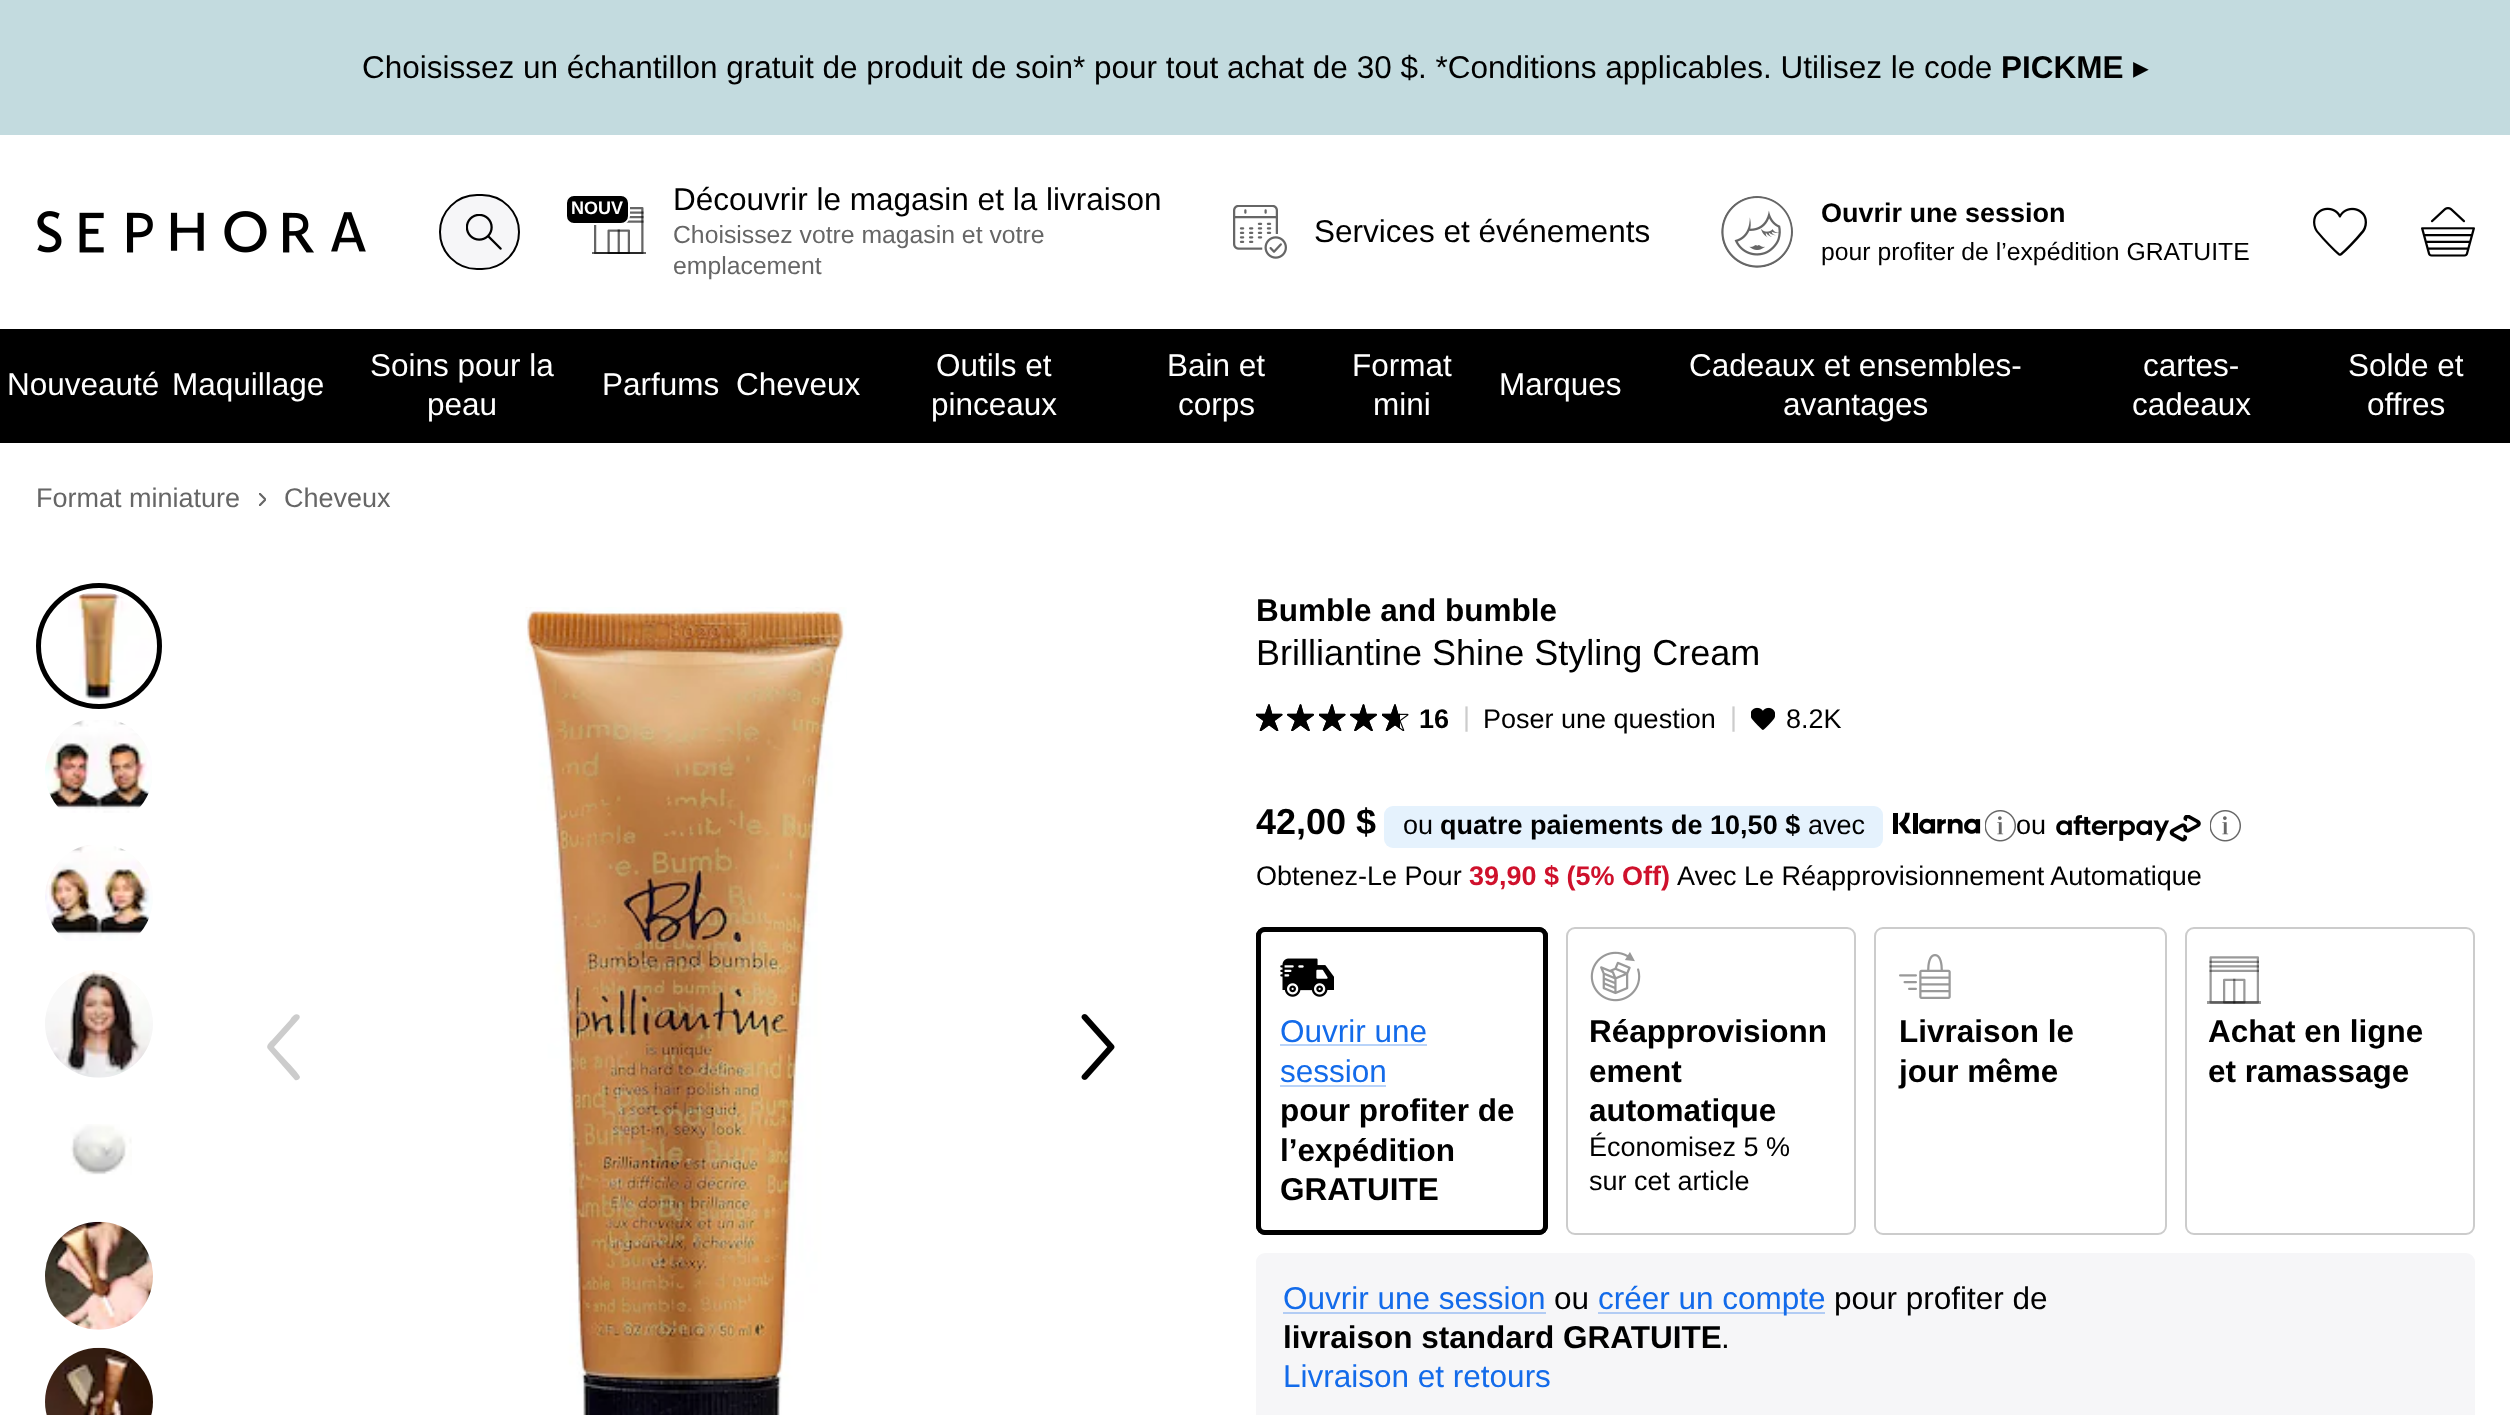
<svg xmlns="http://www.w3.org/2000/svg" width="2510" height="1415">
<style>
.a{font:31.5px Liberation Sans;fill:#000}
.b{font:bold 31.5px Liberation Sans;fill:#000}
.c{font:31.5px DejaVu Sans;fill:#000}
.d{font:bold 18px Liberation Sans;fill:#fff}
.e{font:24.75px Liberation Sans;fill:#666}
.f{font:bold 27px Liberation Sans;fill:#000}
.g{font:24.75px Liberation Sans;fill:#000}
.h{font:31.5px Liberation Sans;fill:#fff}
.i{font:27px Liberation Sans;fill:#666}
.j{font:36px Liberation Sans;fill:#000}
.k{font:27px Liberation Sans;fill:#ccc}
.l{font:27px Liberation Sans;fill:#000}
.m{font:bold 36px Liberation Sans;fill:#000}
.n{font:bold 27px Liberation Sans;fill:#cf112c}
.o{font:31.5px Liberation Sans;fill:#136bea}
</style>
<defs>
<clipPath id="clip1"><path d="M259 493h7v13H259z"/></clipPath>
</defs>
<rect width="100%" height="100%" fill="#fff"/>
<path fill="#c3dbdf" d="M0 0h2510v135H0z"/>
<image href="1.png" x="37" y="211" width="329" height="42"/>
<rect fill="#f6f6f8" stroke="#000" stroke-width="2" x="440" y="195" width="79" height="74" rx="37"/>
<image href="2.png" x="466" y="214" width="36" height="36"/>
<image href="3.png" x="592" y="207" width="54" height="47"/>
<rect fill="#000" stroke="#fff" stroke-width="2" x="566" y="195" width="63" height="29" rx="8"/>
<image href="4.png" x="1233" y="205" width="54" height="54"/>
<image href="5.png" x="1721" y="196" width="72" height="72"/>
<image href="6.png" x="2313" y="207" width="54" height="49"/>
<image href="7.png" x="2421" y="207" width="54" height="50"/>
<path fill="#000" d="M0 329h2510v114H0z"/>
<g clip-path="url(#clip1)">
<path fill="none" stroke="#666" stroke-width="2.2" stroke-linecap="round" stroke-linejoin="round" d="M259.5 505.5l6-6l-6-6"/>
</g>
<circle fill="none" stroke="#000" stroke-width="5" cx="99" cy="646" r="60.5"/>
<image href="8.png" x="68" y="592" width="84" height="108"/>
<image href="9.png" x="45" y="720" width="107" height="93"/>
<image href="10.png" x="45" y="845" width="108" height="96"/>
<image href="11.png" x="45" y="970" width="108" height="108"/>
<image href="12.png" x="70" y="1124" width="62" height="51"/>
<image href="13.png" x="45" y="1221" width="108" height="109"/>
<image href="14.png" x="45" y="1347" width="108" height="68"/>
<path fill="#ccc" d="M299 1015c1 1 1 3 0 4l-25 28c3 4 26 27 26 30c0 2-3 4-5 3l-27-31c-3-3 3-8 4-9l18-20c1-2 5-8 9-5z"/>
<image href="15.png" x="525" y="607" width="322" height="808"/>
<image href="16.png" x="1081" y="1014" width="34" height="66"/>
<image href="17.png" x="1256" y="704" width="27" height="27"/>
<image href="18.png" x="1287" y="704" width="27" height="27"/>
<image href="17.png" x="1319" y="704" width="27" height="27"/>
<image href="18.png" x="1350" y="704" width="27" height="27"/>
<image href="17.png" x="1382" y="704" width="27" height="27"/>
<image href="19.png" x="1256" y="704" width="27" height="27"/>
<image href="20.png" x="1287" y="704" width="27" height="27"/>
<image href="19.png" x="1319" y="704" width="27" height="27"/>
<image href="20.png" x="1350" y="704" width="27" height="27"/>
<image href="21.png" x="1382" y="704" width="18" height="27"/>
<image href="22.png" x="1751" y="707" width="24" height="23"/>
<rect fill="#e5f2fd" x="1384" y="806" width="499" height="42" rx="9"/>
<image href="23.png" x="1893" y="812" width="88" height="22"/>
<image href="24.png" x="1985" y="810" width="31" height="32"/>
<image href="25.png" x="2056" y="815" width="145" height="27"/>
<image href="24.png" x="2210" y="810" width="31" height="32"/>
<rect fill="none" stroke="#ccc" stroke-width="2" x="1567" y="928" width="288" height="306" rx="8"/>
<image href="26.png" x="1590" y="951" width="51" height="51"/>
<rect fill="none" stroke="#000" stroke-width="2" x="1257" y="928" width="290" height="306" rx="8"/>
<image href="27.png" x="1280" y="958" width="54" height="39"/>
<path fill="#b8d3f9" d="M1280 1044h147v2H1280z"/>
<path fill="#b8d3f9" d="M1280 1085h106v2H1280z"/>
<rect fill="none" stroke="#000" stroke-width="5" x="1258.5" y="929.5" width="287" height="303" rx="6.5"/>
<rect fill="#f6f6f8" x="1256" y="1253" width="1219" height="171" rx="9"/>
<path fill="#b2ccf4" d="M1283 1312h263v2H1283z"/>
<path fill="#b2ccf4" d="M1598 1312h227v2H1598z"/>
<rect fill="none" stroke="#ccc" stroke-width="2" x="1875" y="928" width="291" height="306" rx="8"/>
<image href="28.png" x="1899" y="954" width="52" height="45"/>
<rect fill="none" stroke="#ccc" stroke-width="2" x="2186" y="928" width="288" height="306" rx="8"/>
<image href="29.png" x="2207" y="956" width="54" height="48"/>
<text class="a" x="362" y="78">Choisissez un échantillon gratuit de produit de soin* pour tout achat de 30 $. *Conditions applicables. Utilisez le code</text>
<text class="b" x="2001" y="78">PICKME</text>
<text class="c" x="2133" y="78">▸</text>
<text class="d" x="571" y="214">NOUV</text>
<text class="a" x="673" y="210">Découvrir le magasin et la livraison</text>
<text class="e" x="673" y="243">Choisissez votre magasin et votre</text>
<text class="e" x="673" y="274">emplacement</text>
<text class="a" x="1314" y="242">Services et événements</text>
<text class="f" x="1821" y="222">Ouvrir une session</text>
<text class="g" x="1821" y="260">pour profiter de l’expédition GRATUITE</text>
<text class="h" x="7" y="395">Nouveauté</text>
<text class="h" x="172" y="395">Maquillage</text>
<text class="h" x="370" y="376">Soins pour la</text>
<text class="h" x="427" y="415">peau</text>
<text class="h" x="602" y="395">Parfums</text>
<text class="h" x="736" y="395">Cheveux</text>
<text class="h" x="936" y="376">Outils et</text>
<text class="h" x="931" y="415">pinceaux</text>
<text class="h" x="1167" y="376">Bain et</text>
<text class="h" x="1178" y="415">corps</text>
<text class="h" x="1352" y="376">Format</text>
<text class="h" x="1373" y="415">mini</text>
<text class="h" x="1499" y="395">Marques</text>
<text class="h" x="1689" y="376">Cadeaux et ensembles-</text>
<text class="h" x="1783" y="415">avantages</text>
<text class="h" x="2143" y="376">cartes-</text>
<text class="h" x="2132" y="415">cadeaux</text>
<text class="h" x="2348" y="376">Solde et</text>
<text class="h" x="2367" y="415">offres</text>
<text class="i" x="36" y="507">Format miniature</text>
<text class="i" x="284" y="507">Cheveux</text>
<text class="b" x="1256" y="621">Bumble and bumble</text>
<text class="j" x="1256" y="665">Brilliantine Shine Styling Cream</text>
<text class="f" x="1419" y="728">16</text>
<text class="k" x="1463" y="726">|</text>
<text class="l" x="1483" y="728">Poser une question</text>
<text class="k" x="1730" y="726">|</text>
<text class="l" x="1786" y="728">8.2K</text>
<text class="m" x="1256" y="834">42,00 $</text>
<text class="l" x="1403" y="834">ou</text>
<text class="f" x="1440" y="834">quatre paiements de 10,50 $</text>
<text class="l" x="1808" y="834">avec</text>
<text class="l" x="2016" y="834">ou</text>
<text class="l" x="1256" y="885">Obtenez-Le Pour</text>
<text class="n" x="1469" y="885">39,90 $ (5% Off)</text>
<text class="l" x="1677" y="885">Avec Le Réapprovisionnement Automatique</text>
<text class="b" x="1589" y="1042">Réapprovisionn</text>
<text class="b" x="1589" y="1082">ement</text>
<text class="b" x="1589" y="1121">automatique</text>
<text class="l" x="1589" y="1156">Économisez 5 %</text>
<text class="l" x="1589" y="1190">sur cet article</text>
<text class="o" x="1280" y="1042">Ouvrir une</text>
<text class="o" x="1280" y="1082">session</text>
<text class="b" x="1280" y="1121">pour profiter de</text>
<text class="b" x="1280" y="1161">l’expédition</text>
<text class="b" x="1280" y="1200">GRATUITE</text>
<text class="o" x="1283" y="1309">Ouvrir une session</text>
<text class="a" x="1554" y="1309">ou</text>
<text class="o" x="1598" y="1309">créer un compte</text>
<text class="a" x="1834" y="1309">pour profiter de</text>
<text class="b" x="1283" y="1348">livraison standard GRATUITE</text>
<text class="a" x="1721" y="1348">.</text>
<text class="o" x="1283" y="1387">Livraison et retours</text>
<text class="b" x="1899" y="1042">Livraison le</text>
<text class="b" x="1899" y="1082">jour même</text>
<text class="b" x="2208" y="1042">Achat en ligne</text>
<text class="b" x="2208" y="1082">et ramassage</text>
</svg>
